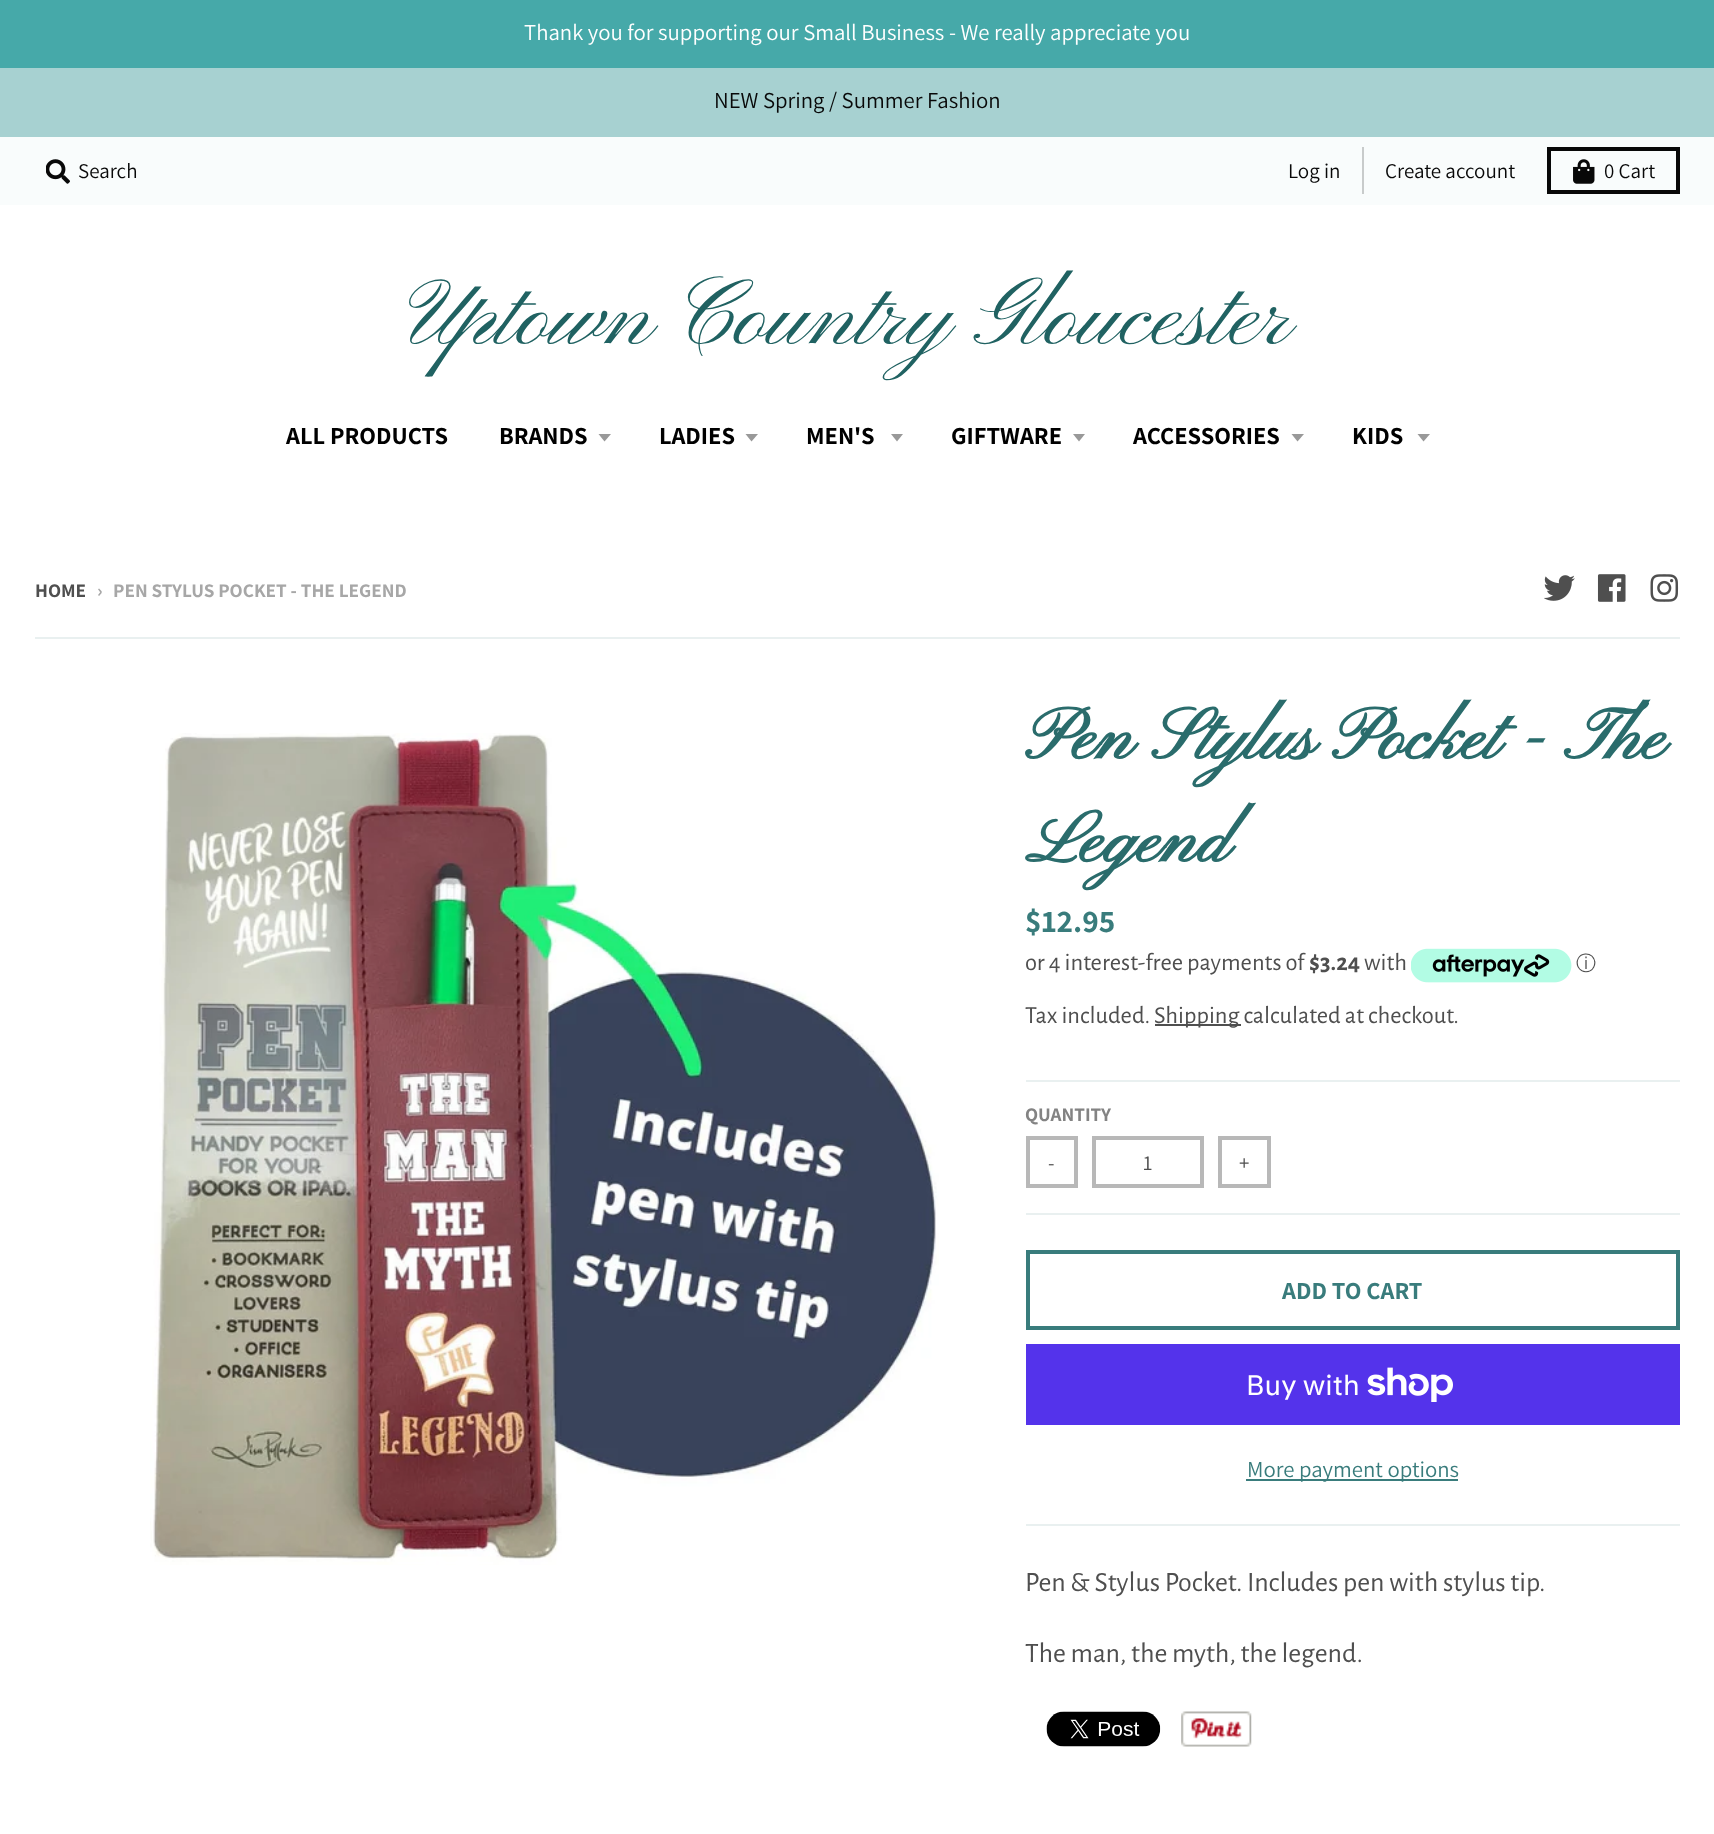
<svg xmlns="http://www.w3.org/2000/svg" width="1714" height="1834">
<style>
.a{font:22.75px Assistant;fill:#fff}
.b{font:22.75px Assistant;fill:#080808}
.c{font:21px Assistant;fill:#080808}
.d{font:94.5px Pinyon Script;fill:#206262}
.e{font:bold 24.5px Assistant;fill:#000}
.f{font:bold 19.25px Assistant;fill:#4f4f4f}
.g{font:bold 19.25px Assistant;fill:#a7a7a7}
.h{font:bold 73.5px Pinyon Script;fill:#2a6c6c}
.i{font:bold 31.5px Assistant;fill:#397c7c}
.j{font:24.5px Alegreya Sans;fill:#4f4f4f}
.k{font:bold 24.5px Alegreya Sans;fill:#4f4f4f}
.l{font:500 20px WenQuanYi Zen Hei;fill:#4f4f4f}
.m{font:bold 19.25px Assistant;fill:#838383}
.n{font:21px Assistant;fill:#4f4f4f}
.o{font:bold 24.5px Assistant;fill:#397c7c}
.p{font:28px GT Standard;fill:#fff}
.q{font:22.75px Assistant;fill:#397c7c}
.r{font:28px Alegreya Sans;fill:#4f4f4f}
</style>
<rect width="100%" height="100%" fill="#fff"/>
<path fill="#46a9a9" d="M0 0h1714v68H0z"/>
<path fill="#a7d1d1" d="M0 68h1714v69H0z"/>
<path fill="#f9fcfc" d="M0 137h1714v68H0z"/>
<image href="1.png" x="46" y="159" width="24" height="25"/>
<path fill="#c8cbcb" d="M1362 147h2v47H1362z"/>
<path fill="none" stroke="#080808" stroke-width="4" d="M1549 149h129v43H1549z"/>
<image href="2.png" x="1573" y="159" width="22" height="25"/>
<path fill="#999" d="M598.5 434l6 7.5l6.5-7.5z"/>
<path fill="#999" d="M745.5 434l6 7.5l6.5-7.5z"/>
<path fill="#999" d="M891 434l6 7.5l6-7.5z"/>
<path fill="#999" d="M1073 434l6 7.5l6-7.5z"/>
<path fill="#999" d="M1291.5 434l6 7.5l6.5-7.5z"/>
<path fill="#999" d="M1417.5 434l6 7.5l6.5-7.5z"/>
<image href="3.png" x="1544" y="575" width="31" height="26"/>
<image href="4.png" x="1597" y="574" width="29" height="28"/>
<image href="5.png" x="1650" y="574" width="29" height="28"/>
<path fill="#e9f0f0" d="M35 637h1645v2H35z"/>
<image href="6.png" x="150" y="733" width="789" height="832"/>
<path fill="#e9f0f0" d="M1026 1524h654v2H1026z"/>
<path fill="#e9f0f0" d="M1026 1080h654v2H1026z"/>
<image href="7.png" x="1411" y="948" width="161" height="35"/>
<path fill="#4f4f4f" d="M1155 1024h86v2H1155z"/>
<path fill="#e9f0f0" d="M1026 1213h654v2H1026z"/>
<path fill="none" stroke="#b8b8b8" stroke-width="4" d="M1028 1138h48v48H1028z"/>
<path fill="none" stroke="#b8b8b8" stroke-width="4" d="M1094 1138h108v48H1094z"/>
<path fill="none" stroke="#b8b8b8" stroke-width="4" d="M1220 1138h49v48H1220z"/>
<path fill="none" stroke="#397c7c" stroke-width="4" d="M1028 1252h650v76H1028z"/>
<path fill="#5433eb" d="M1026 1344h654v81H1026z"/>
<image href="8.png" x="1367" y="1367" width="86" height="35"/>
<path fill="#397c7c" d="M1246 1479h212v2H1246z"/>
<image href="9.png" x="1046" y="1711" width="115" height="36"/>
<image href="10.png" x="1181" y="1711" width="71" height="36"/>
<text class="a" x="524" y="40">Thank you for supporting our Small Business - We really appreciate you</text>
<text class="b" x="714" y="108">NEW Spring / Summer Fashion</text>
<text class="c" x="78" y="178">Search</text>
<text class="c" x="1288" y="178">Log in</text>
<text class="c" x="1385" y="178">Create account</text>
<text class="c" x="1604" y="178">0 Cart</text>
<text class="d" x="409" y="344">Uptown Country Gloucester</text>
<text class="e" x="286" y="444">ALL PRODUCTS</text>
<text class="e" x="499" y="444">BRANDS</text>
<text class="e" x="659" y="444">LADIES</text>
<text class="e" x="806" y="444">MEN'S</text>
<text class="e" x="951" y="444">GIFTWARE</text>
<text class="e" x="1133" y="444">ACCESSORIES</text>
<text class="e" x="1352" y="444">KIDS</text>
<text class="f" x="35" y="597">HOME</text>
<text class="g" x="97" y="597">›</text>
<text class="g" x="113" y="597">PEN STYLUS POCKET - THE LEGEND</text>
<text class="h" x="1025" y="759">Pen Stylus Pocket - The</text>
<text class="h" x="1025" y="862">Legend</text>
<text class="i" x="1025" y="932">$12.95</text>
<text class="j" x="1025" y="970">or 4 interest-free payments of</text>
<text class="k" x="1309" y="970">$3.24</text>
<text class="j" x="1364" y="970">with</text>
<text class="l" x="1576" y="970">ⓘ</text>
<text class="j" x="1025" y="1023">Tax included.</text>
<text class="j" x="1154" y="1023">Shipping calculated at checkout.</text>
<text class="m" x="1025" y="1121">QUANTITY</text>
<text class="n" x="1048" y="1170">-</text>
<text class="n" x="1143" y="1170">1</text>
<text class="n" x="1239" y="1170">+</text>
<text class="o" x="1282" y="1299">ADD TO CART</text>
<text class="p" x="1246" y="1395">Buy with</text>
<text class="q" x="1247" y="1477">More payment options</text>
<text class="r" x="1025" y="1591">Pen &amp; Stylus Pocket. Includes pen with stylus tip.</text>
<text class="r" x="1025" y="1662">The man, the myth, the legend.</text>
</svg>
